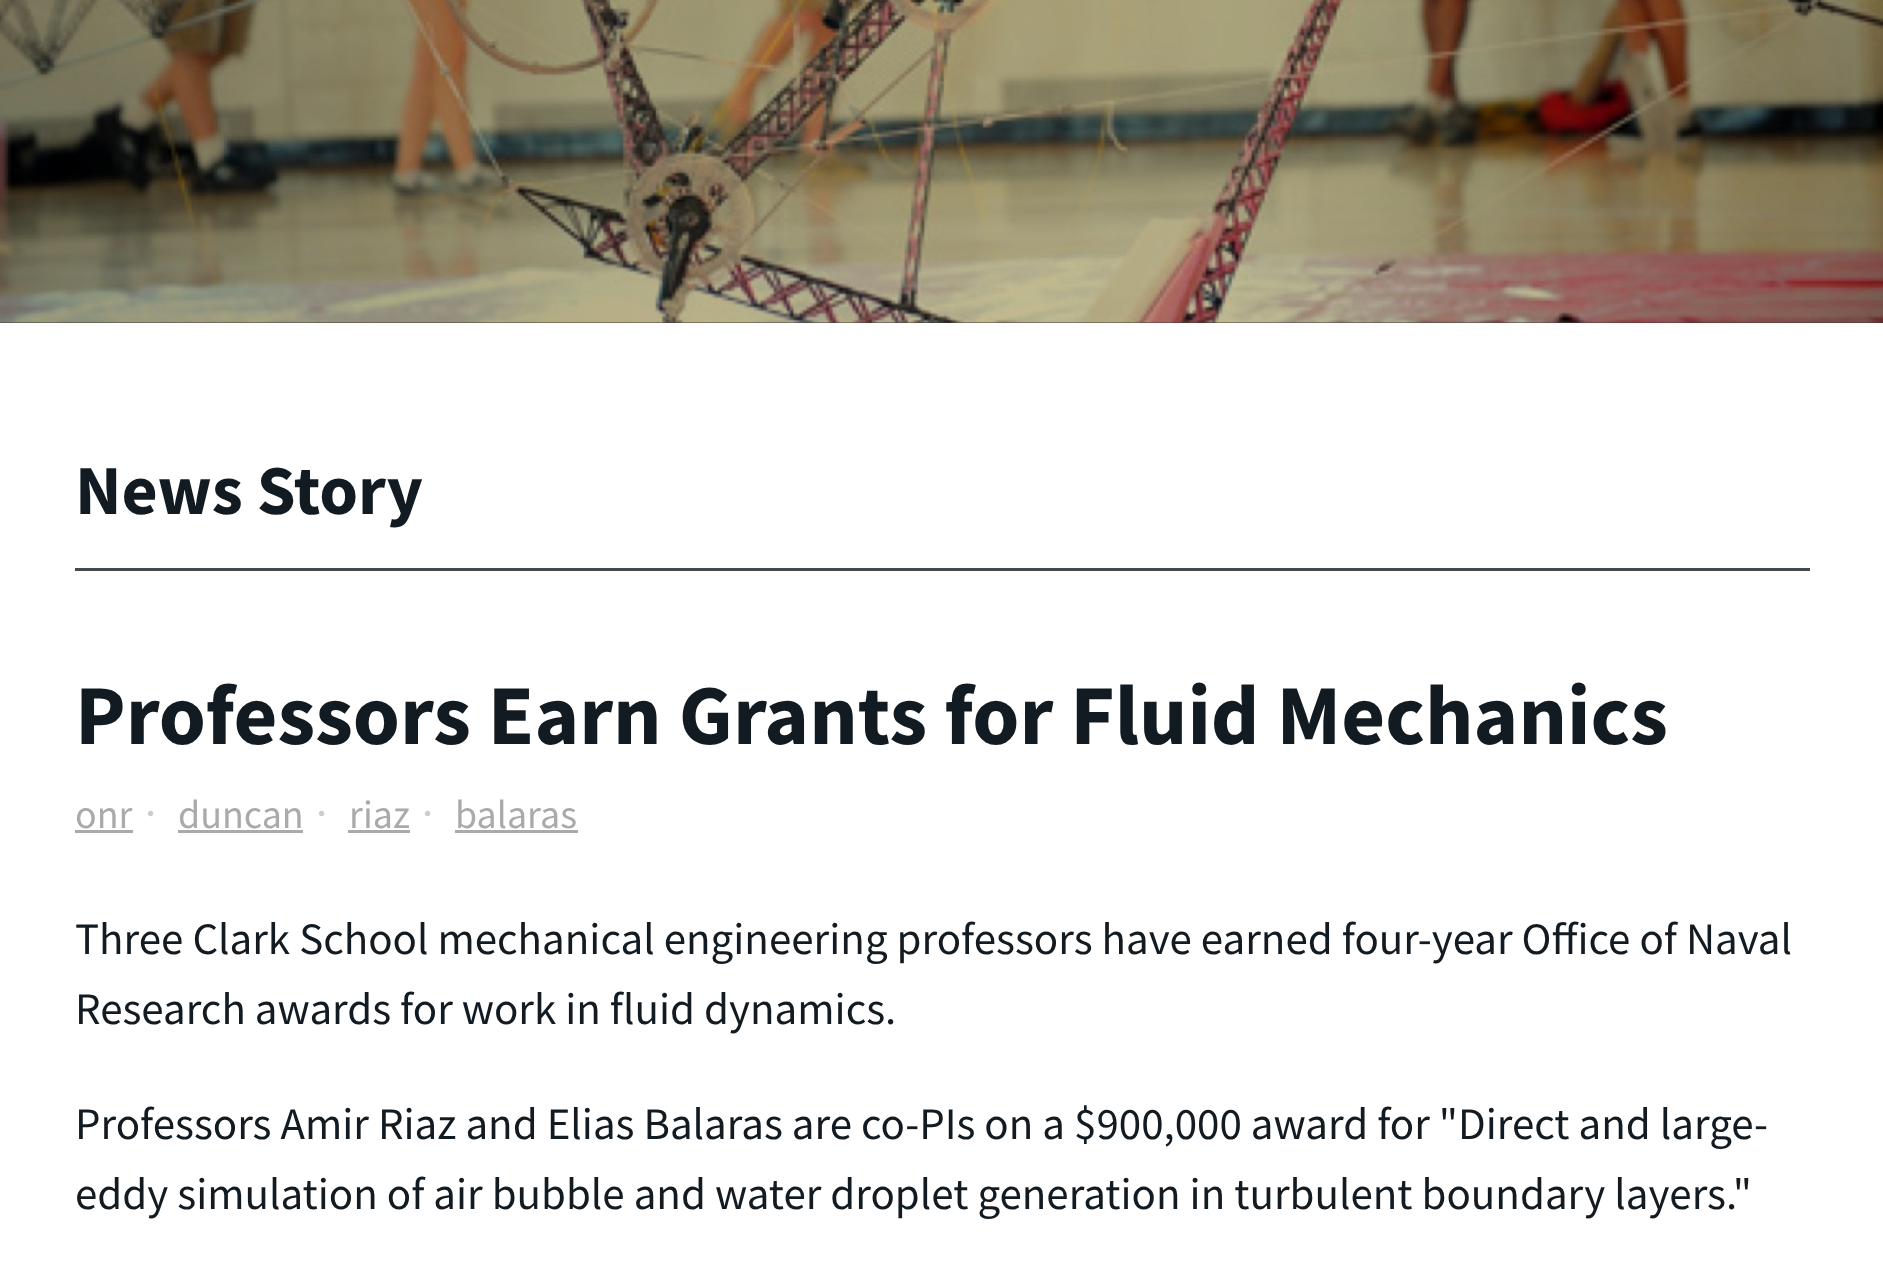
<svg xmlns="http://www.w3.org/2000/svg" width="1883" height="1263">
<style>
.a{font:bold 70px Source Sans Pro;fill:#121b21}
.b{font:bold 85px Source Sans Pro;fill:#121b21}
.c{font:40px Source Sans Pro;fill:#aaa}
.d{font:45px Source Sans Pro;fill:#ccc}
.e{font:45px Source Sans Pro;fill:#121b21}
</style>
<rect width="100%" height="100%" fill="#fff"/>
<path fill="#423c3c" d="M0 322h1883v1H0z"/>
<image href="1.png" x="0" y="0" width="1883" height="323"/>
<path fill="#434a4f" d="M75 568h1735v3H75z"/>
<path fill="#aaa" d="M75 830h58v3H75z"/>
<path fill="#aaa" d="M178 830h125v3H178z"/>
<path fill="#aaa" d="M348 830h62v3H348z"/>
<path fill="#aaa" d="M455 830h123v3H455z"/>
<text class="a" x="75" y="514">News Story</text>
<text class="b" x="75" y="744">Professors Earn Grants for Fluid Mechanics</text>
<text class="c" x="75" y="828">onr</text>
<text class="d" x="145" y="828">·</text>
<text class="c" x="178" y="828">duncan</text>
<text class="d" x="316" y="828">·</text>
<text class="c" x="349" y="828">riaz</text>
<text class="d" x="422" y="828">·</text>
<text class="c" x="455" y="828">balaras</text>
<text class="e" x="75" y="954">Three Clark School mechanical engineering professors have earned four-year Office of Naval</text>
<text class="e" x="75" y="1024">Research awards for work in fluid dynamics.</text>
<text class="e" x="75" y="1139">Professors Amir Riaz and Elias Balaras are co-PIs on a $900,000 award for "Direct and large-</text>
<text class="e" x="75" y="1209">eddy simulation of air bubble and water droplet generation in turbulent boundary layers."</text>
</svg>
